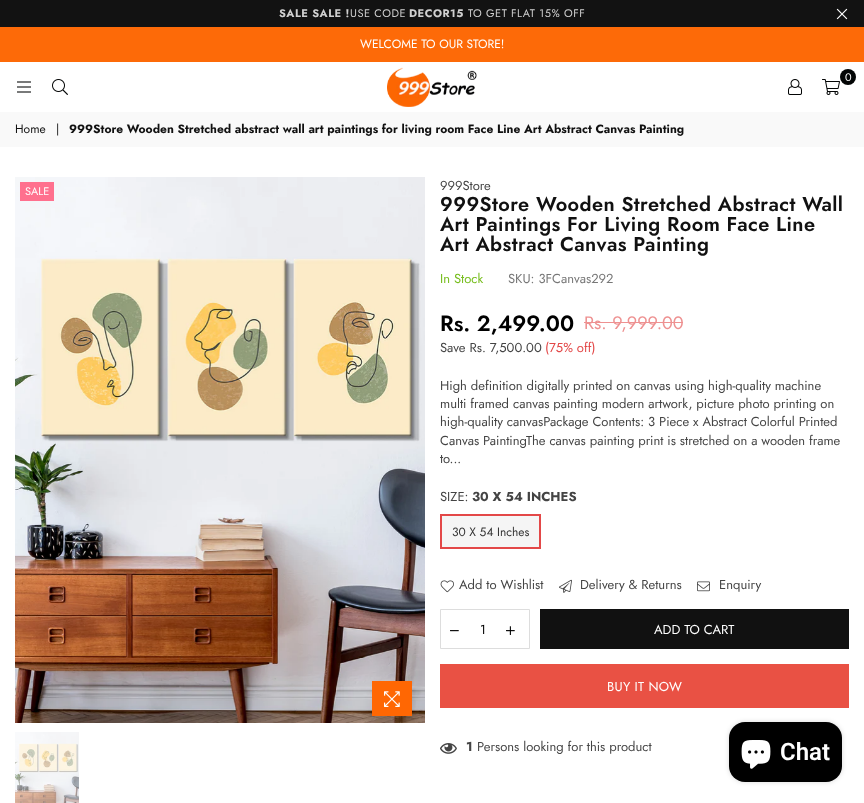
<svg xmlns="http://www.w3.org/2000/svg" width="864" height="803">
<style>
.a{font:bold 11px Jost;letter-spacing:0.5px;fill:#d0d0d0}
.b{font:11px Jost;letter-spacing:0.5px;fill:#d0d0d0}
.c{font:12px Jost;fill:#fff}
.d{font:11px Jost;fill:#fff}
.e{font:12px Jost;fill:#111}
.f{font:bold 12px Jost;fill:#111}
.g{font:13px Jost;fill:#444}
.h{font:600 20px Jost;letter-spacing:0.4px;fill:#111}
.i{font:13px Jost;fill:#76bd1c}
.j{font:13px Jost;fill:#777}
.k{font:600 22px Jost;fill:#000}
.l{font:18px Jost;fill:#ee9191}
.m{font:13px Jost;fill:#e34848}
.n{font:bold 13px Jost;fill:#444}
.o{font:12px Jost;fill:#333}
.p{font:13px Jost;fill:#000}
.q{font:13px Jost;fill:#fff}
.r{font:13px Jost;letter-spacing:0.25px;fill:#fff}
.s{font:600 24px Roboto;fill:#fff}
</style>
<rect width="100%" height="100%" fill="#fff"/>
<path fill="#121212" d="M0 0h864v27H0z"/>
<image href="1.png" x="836" y="8" width="12" height="12"/>
<path fill="#fd6a08" d="M0 27h864v35H0z"/>
<image href="2.png" x="387" y="67" width="90" height="40"/>
<circle fill="#030505" cx="848" cy="77" r="8"/>
<image href="3.png" x="822" y="79" width="18" height="16"/>
<image href="4.png" x="788" y="79" width="14" height="16"/>
<image href="5.png" x="17" y="81" width="14" height="12"/>
<image href="6.png" x="52" y="79" width="16" height="16"/>
<path fill="#f9f9f9" d="M0 112h864v35H0z"/>
<image href="7.png" x="15" y="177" width="410" height="546"/>
<path fill="#ff708e" d="M20 182h34v19H20z"/>
<path fill="#ff6703" d="M372 681h40v35H372z"/>
<image href="8.png" x="384" y="691" width="16" height="16"/>
<image href="9.png" x="15" y="732" width="64" height="71"/>
<path fill="#ee9191" d="M584 322h99v1H584z"/>
<path fill="#f5f5f5" stroke="#e34848" stroke-width="2" d="M441 515h99v33H441z"/>
<image href="10.png" x="440" y="580" width="14" height="13"/>
<image href="11.png" x="559" y="579" width="13" height="14"/>
<image href="12.png" x="697" y="581" width="13" height="11"/>
<path fill="none" stroke="#ddd" d="M440.5 609.5h89v39H440.5z"/>
<image href="13.png" x="450" y="630" width="9" height="2"/>
<image href="14.png" x="506" y="626" width="9" height="9"/>
<path fill="#111" d="M540 609h309v40H540z"/>
<path fill="#e95144" d="M440 664h409v44H440z"/>
<image href="15.png" x="440" y="743" width="17" height="11"/>
<rect fill="#00000026" filter="blur(2.5px)" x="729" y="722" width="113" height="60" rx="16"/>
<rect fill="#000" x="729" y="722" width="113" height="60" rx="16"/>
<image href="16.png" x="741" y="740" width="30" height="29"/>
<text class="a" x="279" y="17">SALE SALE !</text>
<text class="b" x="350" y="17">USE CODE</text>
<text class="a" x="409" y="17">DECOR15</text>
<text class="b" x="468" y="17">TO GET FLAT 15% OFF</text>
<text class="c" x="360" y="48">WELCOME TO OUR STORE!</text>
<text class="d" x="845" y="81">0</text>
<text class="e" x="15" y="133">Home</text>
<text class="e" x="56" y="133">|</text>
<text class="f" x="69" y="133">999Store Wooden Stretched abstract wall art paintings for living room Face Line Art Abstract Canvas Painting</text>
<text class="d" x="25" y="195">SALE</text>
<text class="g" x="440" y="190">999Store</text>
<text class="h" x="440" y="211">999Store Wooden Stretched Abstract Wall</text>
<text class="h" x="440" y="231">Art Paintings For Living Room Face Line</text>
<text class="h" x="440" y="251">Art Abstract Canvas Painting</text>
<text class="i" x="440" y="283">In Stock</text>
<text class="j" x="508" y="283">SKU: 3FCanvas292</text>
<text class="k" x="440" y="331">Rs. 2,499.00</text>
<text class="l" x="584" y="329">Rs. 9,999.00</text>
<text class="g" x="440" y="352">Save Rs. 7,500.00</text>
<text class="m" x="545" y="352">(75% off)</text>
<text class="g" x="440" y="390">High definition digitally printed on canvas using high-quality machine</text>
<text class="g" x="440" y="408">multi framed canvas painting modern artwork, picture photo printing on</text>
<text class="g" x="440" y="426">high-quality canvasPackage Contents: 3 Piece x Abstract Colorful Printed</text>
<text class="g" x="440" y="445">Canvas PaintingThe canvas painting print is stretched on a wooden frame</text>
<text class="g" x="440" y="463">to...</text>
<text class="g" x="440" y="501">SIZE:</text>
<text class="n" x="472" y="501">30 X 54 INCHES</text>
<text class="o" x="452" y="536">30 X 54 Inches</text>
<text class="g" x="459" y="589">Add to Wishlist</text>
<text class="g" x="580" y="589">Delivery &amp; Returns</text>
<text class="g" x="719" y="589">Enquiry</text>
<text class="p" x="480" y="634">1</text>
<text class="q" x="654" y="634">ADD TO CART</text>
<text class="r" x="607" y="691">BUY IT NOW</text>
<text class="n" x="466" y="751">1</text>
<text class="g" x="477" y="751">Persons looking for this product</text>
<text class="s" x="780" y="760">Chat</text>
</svg>
